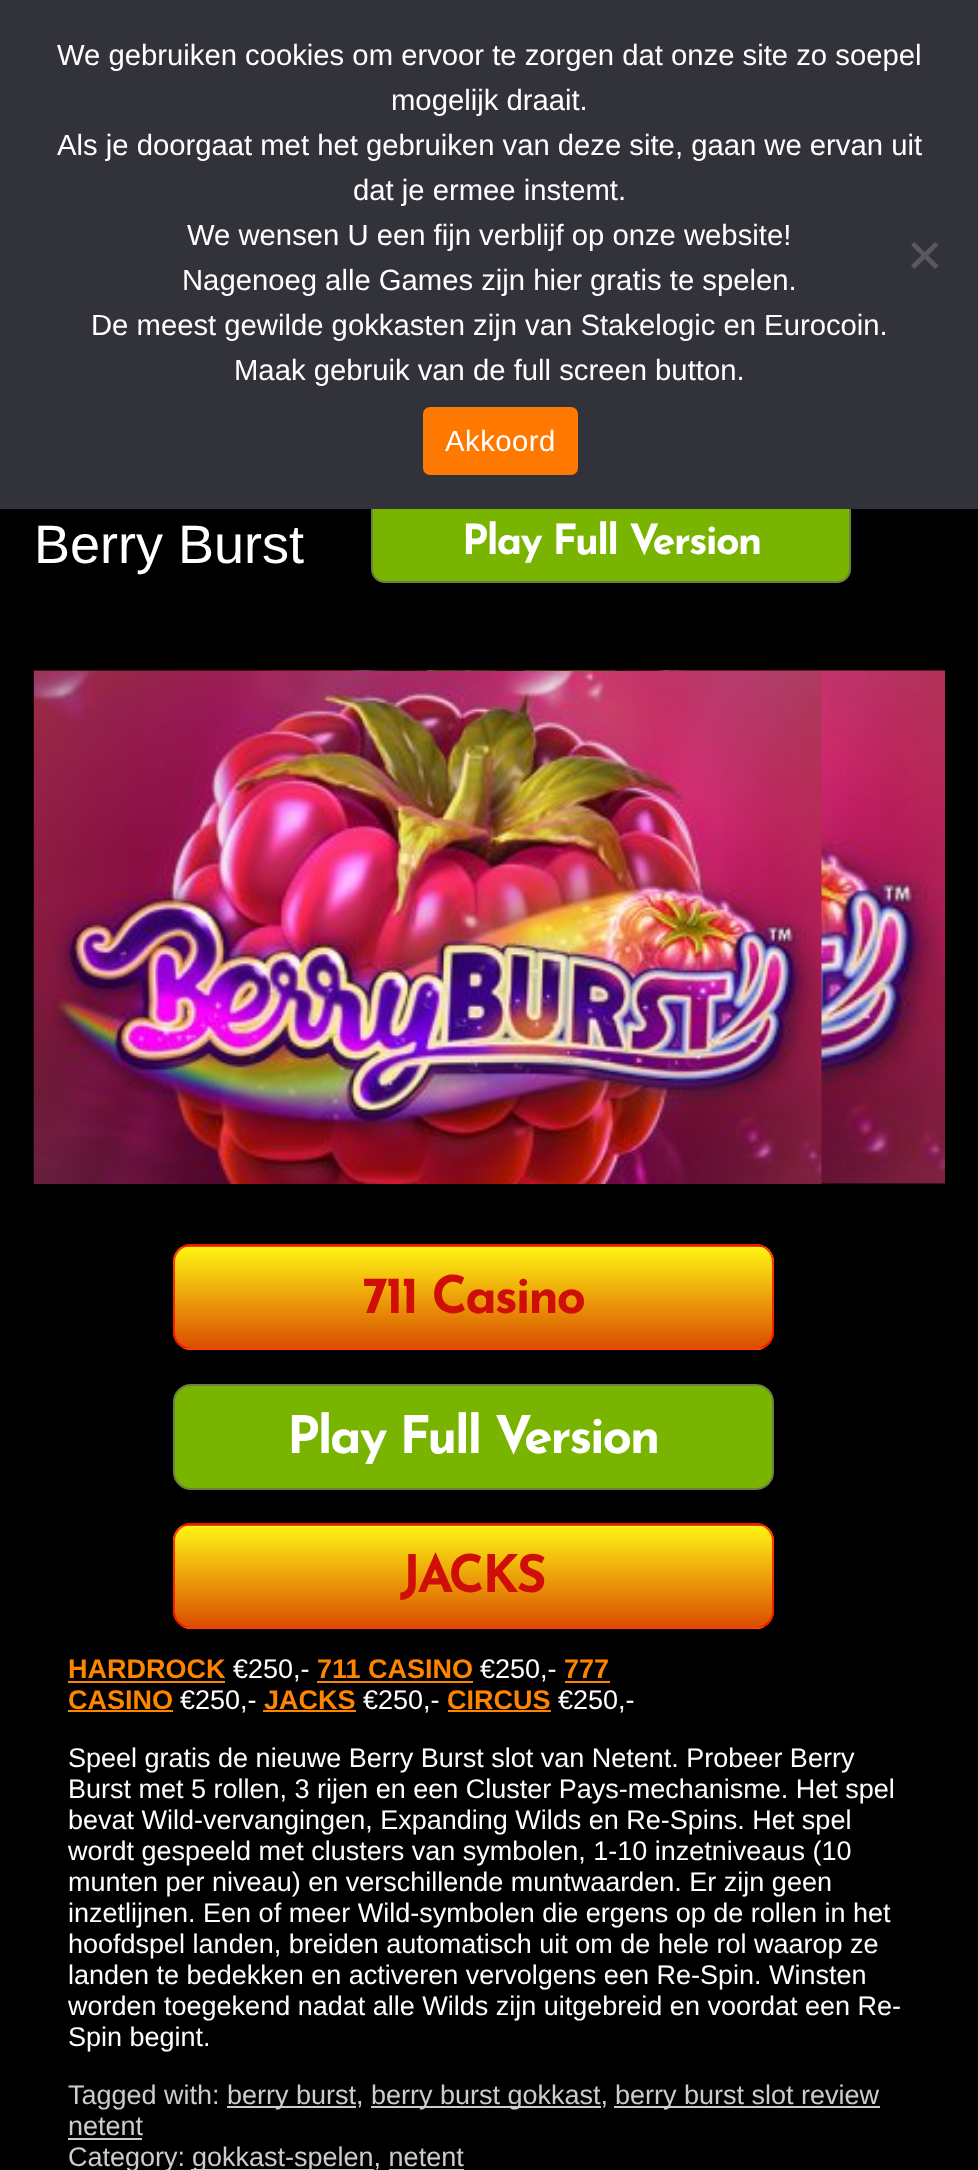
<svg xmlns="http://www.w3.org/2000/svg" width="978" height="2170">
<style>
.a{font:29.25px Liberation Sans;fill:#fff}
.b{font:29.25px Liberation Sans;letter-spacing:0.5px;fill:#fff}
.c{font:54px Liberation Sans;fill:#fff}
.d{font:100 41.5px Josefin Sans;letter-spacing:-1.75px;fill:#fff}
.e{font:100 51.75px Josefin Sans;letter-spacing:-2.25px;fill:#cf0e09}
.f{font:100 51.75px Josefin Sans;letter-spacing:-2.25px;fill:#fff}
.g{font:bold 27px Liberation Sans;fill:#ff8400}
.h{font:27px Liberation Sans;fill:#fff}
.i{font:27px Liberation Sans;fill:#ccc}
</style>
<defs>
<clipPath id="clip1"><rect x="173" y="1244" width="601" height="106" rx="18"/></clipPath>
<linearGradient id="g1" gradientUnits="userSpaceOnUse" x1="474" y1="1145" x2="474" y2="1247"><stop offset="0" stop-color="#fef414"/><stop offset="1" stop-color="#da4e00"/></linearGradient>
<linearGradient id="g2" gradientUnits="userSpaceOnUse" x1="474" y1="1247" x2="474" y2="1348"><stop offset="0" stop-color="#fef414"/><stop offset="1" stop-color="#da4e00"/></linearGradient>
<linearGradient id="g3" gradientUnits="userSpaceOnUse" x1="474" y1="1348" x2="474" y2="1449"><stop offset="0" stop-color="#fef414"/><stop offset="1" stop-color="#da4e00"/></linearGradient>
<clipPath id="clip2"><rect x="173" y="1523" width="601" height="106" rx="18"/></clipPath>
<linearGradient id="g4" gradientUnits="userSpaceOnUse" x1="474" y1="1424" x2="474" y2="1526"><stop offset="0" stop-color="#fef414"/><stop offset="1" stop-color="#da4e00"/></linearGradient>
<linearGradient id="g5" gradientUnits="userSpaceOnUse" x1="474" y1="1526" x2="474" y2="1627"><stop offset="0" stop-color="#fef414"/><stop offset="1" stop-color="#da4e00"/></linearGradient>
<linearGradient id="g6" gradientUnits="userSpaceOnUse" x1="474" y1="1627" x2="474" y2="1728"><stop offset="0" stop-color="#fef414"/><stop offset="1" stop-color="#da4e00"/></linearGradient>
</defs>
<rect width="100%" height="100%" fill="#000"/>
<rect fill="#79b401" stroke="#6a823b" stroke-width="2" x="372" y="498" width="478" height="84" rx="13"/>
<path fill="#32323a" d="M0 0h978v509H0z"/>
<path fill="#59595d" d="M935 242l3.5 3l-24 24l-3.5-3.5z"/>
<path fill="#59595d" d="M911 245l3.5-3l24 23.5l-3.5 3.5z"/>
<rect fill="#ff7800" x="423" y="407" width="155" height="68" rx="7"/>
<image href="1.png" x="33" y="670" width="912" height="514"/>
<image href="2.png" x="34" y="671" width="788" height="513"/>
<g clip-path="url(#clip1)">
<path fill="url(#g1)" d="M173 1244h601v3H173z"/>
<path fill="url(#g2)" d="M173 1247h601v101H173z"/>
<path fill="url(#g3)" d="M183 1348h581v2H183z"/>
</g>
<rect fill="none" stroke="#ff0000bf" stroke-width="2" x="174" y="1245" width="599" height="104" rx="17"/>
<rect fill="#79b401" stroke="#6a823b" stroke-width="2" x="174" y="1385" width="599" height="104" rx="17"/>
<g clip-path="url(#clip2)">
<path fill="url(#g4)" d="M173 1523h601v3H173z"/>
<path fill="url(#g5)" d="M173 1526h601v101H173z"/>
<path fill="url(#g6)" d="M183 1627h581v2H183z"/>
</g>
<rect fill="none" stroke="#ff0000bf" stroke-width="2" x="174" y="1524" width="599" height="104" rx="17"/>
<path fill="#ff8400" d="M68 1681h157v2H68z"/>
<path fill="#ff8400" d="M317 1681h156v2H317z"/>
<path fill="#ff8400" d="M565 1681h45v2H565z"/>
<path fill="#ff8400" d="M68 1710h105v2H68z"/>
<path fill="#ff8400" d="M263 1710h93v2H263z"/>
<path fill="#ff8400" d="M448 1710h103v2H448z"/>
<path fill="#ccc" d="M227 2106h129v2H227z"/>
<path fill="#ccc" d="M371 2106h230v2H371z"/>
<path fill="#ccc" d="M614 2106h266v2H614z"/>
<path fill="#ccc" d="M68 2138h74v2H68z"/>
<path fill="#ccc" d="M191 2169h183v1H191z"/>
<path fill="#ccc" d="M389 2169h75v1H389z"/>
<text class="a" x="57" y="65">We gebruiken cookies om ervoor te zorgen dat onze site zo soepel</text>
<text class="a" x="391" y="110">mogelijk draait.</text>
<text class="a" x="57" y="155">Als je doorgaat met het gebruiken van deze site, gaan we ervan uit</text>
<text class="a" x="353" y="200">dat je ermee instemt.</text>
<text class="a" x="187" y="245">We wensen U een fijn verblijf op onze website!</text>
<text class="a" x="182" y="290">Nagenoeg alle Games zijn hier gratis te spelen.</text>
<text class="a" x="91" y="335">De meest gewilde gokkasten zijn van Stakelogic en Eurocoin.</text>
<text class="a" x="234" y="380">Maak gebruik van de full screen button.</text>
<text class="b" x="445" y="451">Akkoord</text>
<text class="c" x="34" y="563">Berry Burst</text>
<text class="d" x="462" y="554">Play Full Version</text>
<text class="e" x="362" y="1313">711 Casino</text>
<text class="f" x="287" y="1453">Play Full Version</text>
<text class="e" x="400" y="1592">JACKS</text>
<text class="g" x="68" y="1678">HARDROCK</text>
<text class="h" x="233" y="1678">€250,-</text>
<text class="g" x="317" y="1678">711 CASINO</text>
<text class="h" x="480" y="1678">€250,-</text>
<text class="g" x="564" y="1678">777</text>
<text class="g" x="68" y="1709">CASINO</text>
<text class="h" x="180" y="1709">€250,-</text>
<text class="g" x="264" y="1709">JACKS</text>
<text class="h" x="363" y="1709">€250,-</text>
<text class="g" x="447" y="1709">CIRCUS</text>
<text class="h" x="558" y="1709">€250,-</text>
<text class="h" x="68" y="1767">Speel gratis de nieuwe Berry Burst slot van Netent. Probeer Berry</text>
<text class="h" x="68" y="1798">Burst met 5 rollen, 3 rijen en een Cluster Pays-mechanisme. Het spel</text>
<text class="h" x="68" y="1829">bevat Wild-vervangingen, Expanding Wilds en Re-Spins. Het spel</text>
<text class="h" x="68" y="1860">wordt gespeeld met clusters van symbolen, 1-10 inzetniveaus (10</text>
<text class="h" x="68" y="1891">munten per niveau) en verschillende muntwaarden. Er zijn geen</text>
<text class="h" x="68" y="1922">inzetlijnen. Een of meer Wild-symbolen die ergens op de rollen in het</text>
<text class="h" x="68" y="1953">hoofdspel landen, breiden automatisch uit om de hele rol waarop ze</text>
<text class="h" x="68" y="1984">landen te bedekken en activeren vervolgens een Re-Spin. Winsten</text>
<text class="h" x="68" y="2015">worden toegekend nadat alle Wilds zijn uitgebreid en voordat een Re-</text>
<text class="h" x="68" y="2046">Spin begint.</text>
<text class="i" x="68" y="2104">Tagged with:</text>
<text class="i" x="227" y="2104">berry burst,</text>
<text class="i" x="371" y="2104">berry burst gokkast,</text>
<text class="i" x="615" y="2104">berry burst slot review</text>
<text class="i" x="68" y="2135">netent</text>
<text class="i" x="68" y="2166">Category:</text>
<text class="i" x="192" y="2166">gokkast-spelen, netent</text>
</svg>
